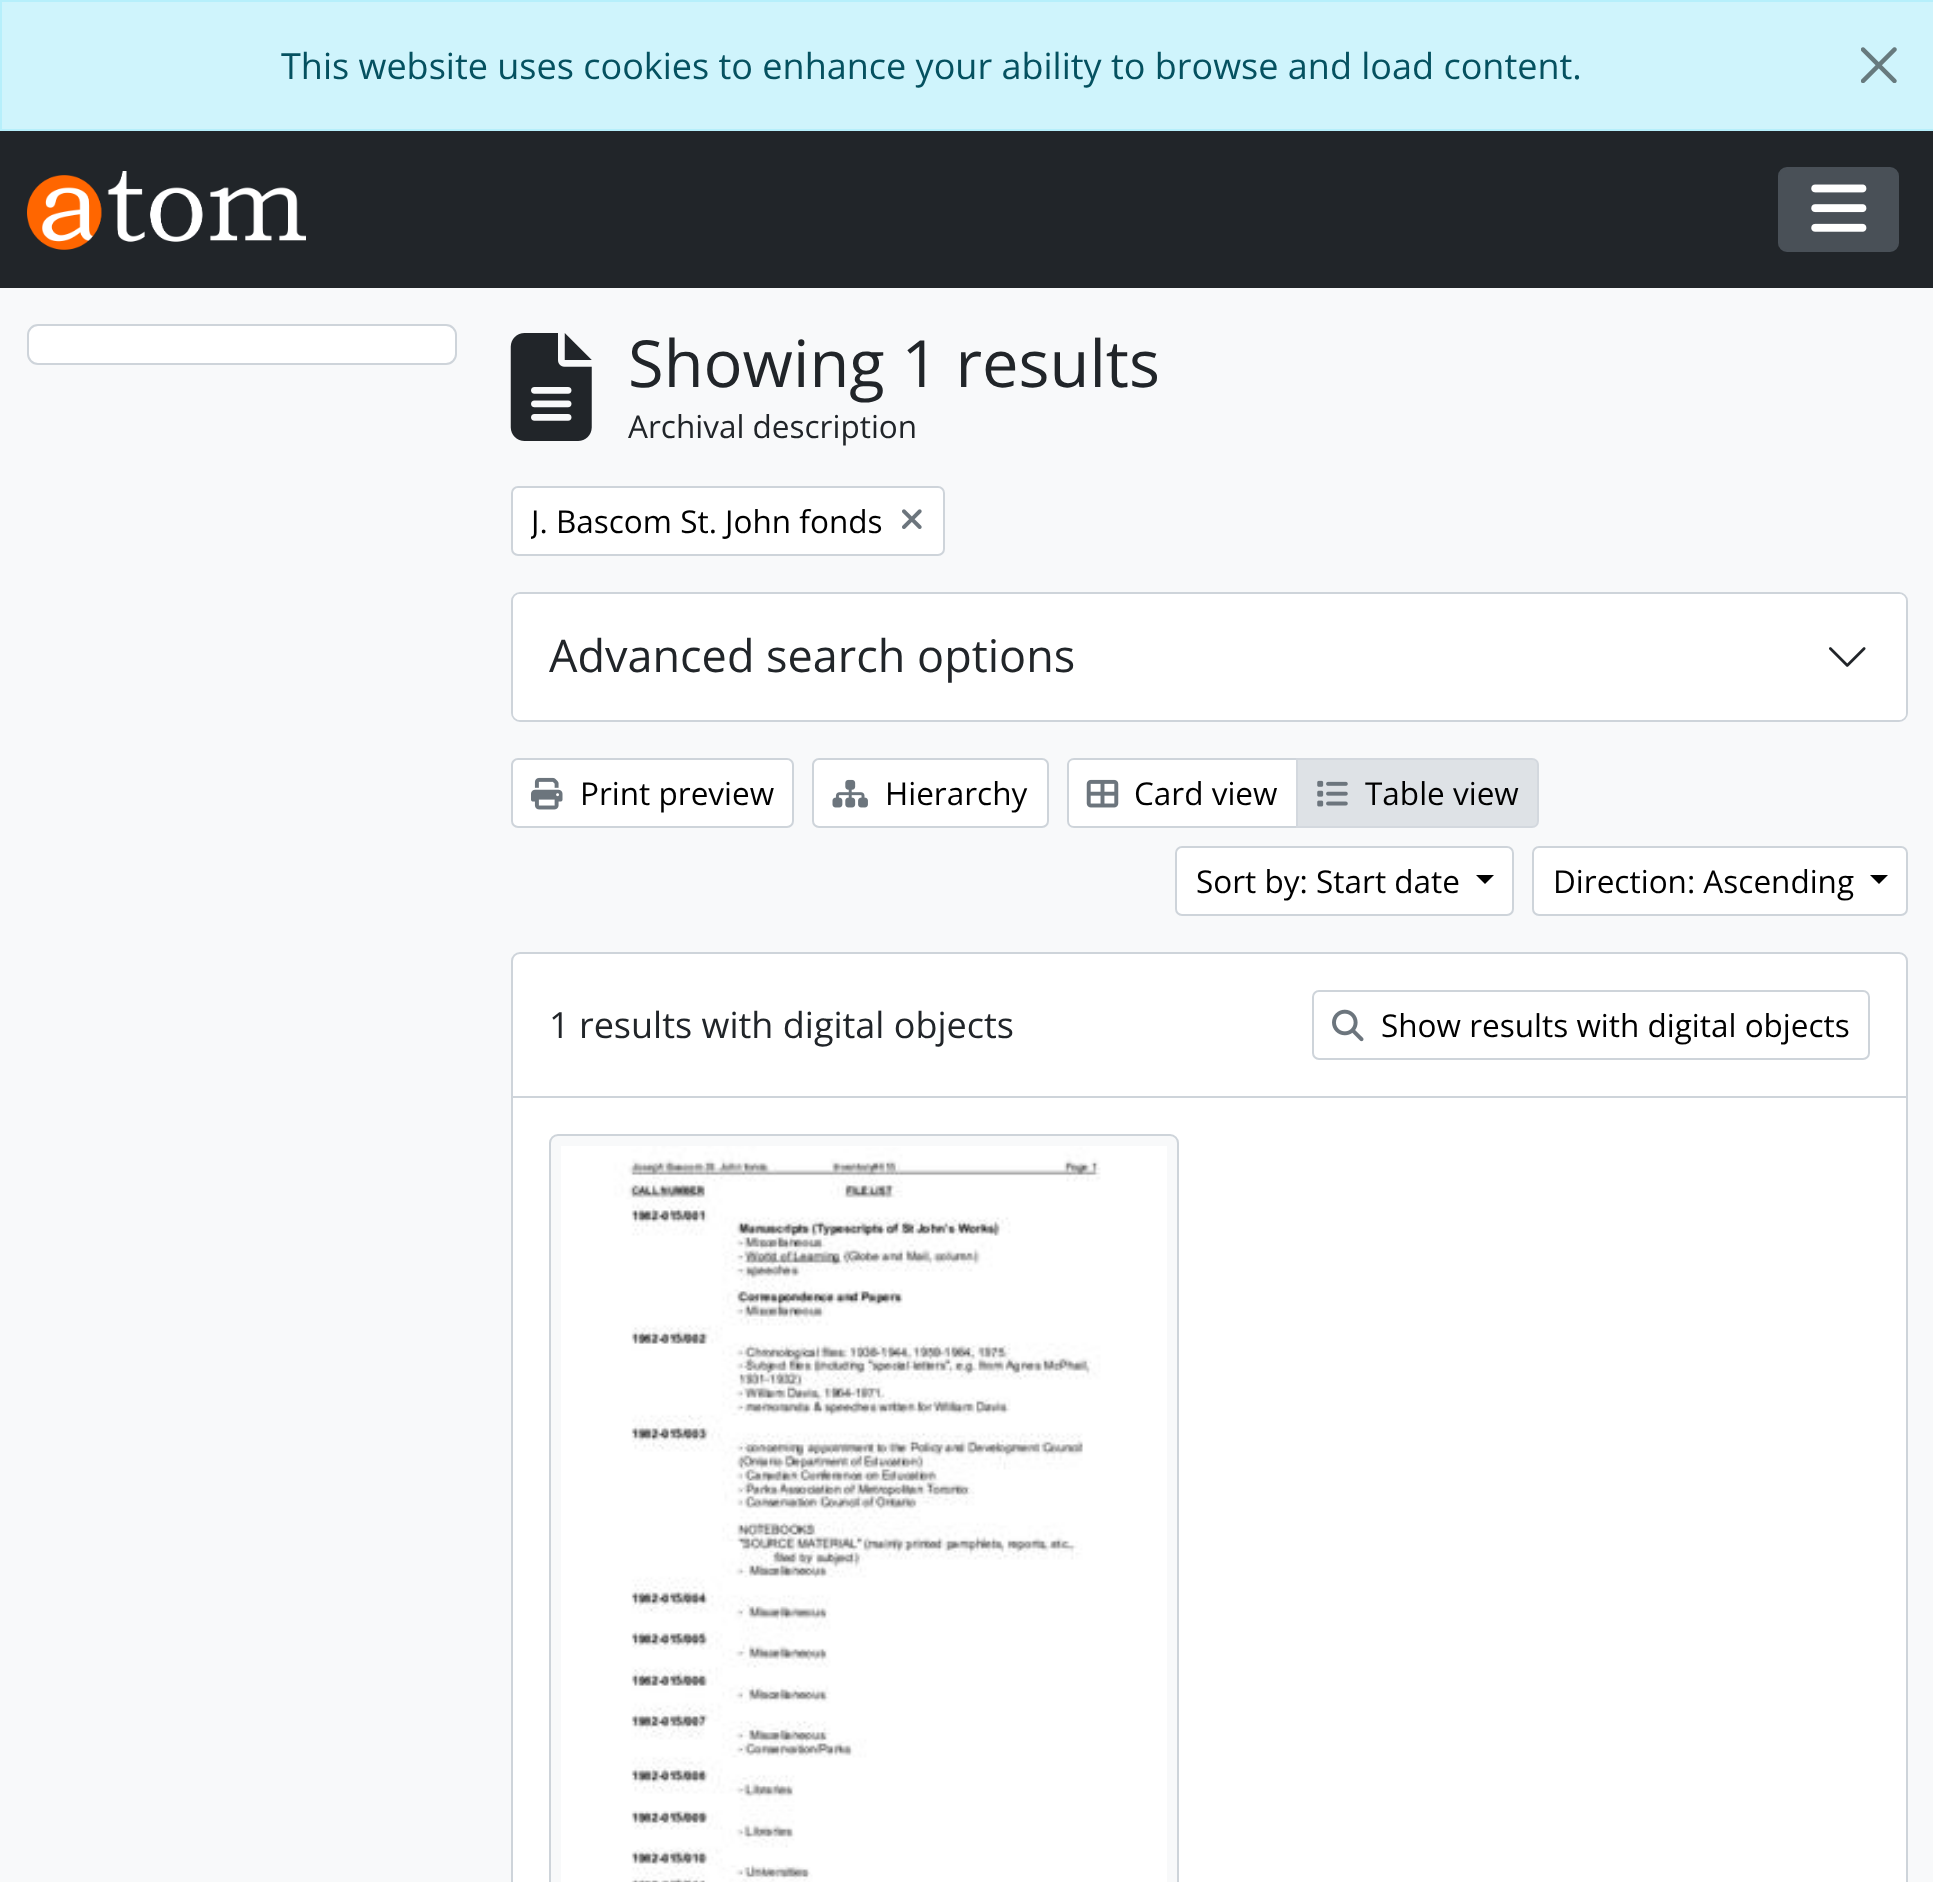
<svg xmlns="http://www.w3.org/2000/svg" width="1933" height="1882">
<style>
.a{font:36px Open Sans;fill:#055160}
.b{font:65px Open Sans;fill:#212529}
.c{font:31.5px Open Sans;fill:#212529}
.d{font:31.5px Open Sans;fill:#000}
.e{font:45px Open Sans;fill:#212529}
.f{font:36px Open Sans;fill:#212529}
</style>
<defs>
<clipPath id="clip1"><path d="M531 497h351v48H531z"/></clipPath>
</defs>
<rect width="100%" height="100%" fill="#f8f9fa"/>
<path fill="#cff4fc" stroke="#b6effb" stroke-width="2" d="M1 1h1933v129H1z"/>
<image href="1.png" x="1861" y="47" width="36" height="36"/>
<path fill="#212529" d="M0 131h1933v157H0z"/>
<image href="2.png" x="27" y="171" width="279" height="79"/>
<rect fill="#495057" stroke="#495057" stroke-width="2" x="1779" y="168" width="119" height="83" rx="8"/>
<image href="3.png" x="1811" y="184" width="56" height="48"/>
<rect fill="#fff" stroke="#ced4da" stroke-width="2" x="28" y="325" width="428" height="39" rx="10"/>
<image href="4.png" x="510" y="333" width="82" height="108"/>
<rect fill="#fff" stroke="#ced4da" stroke-width="2" x="512" y="487" width="432" height="68" rx="6"/>
<image href="5.png" x="902" y="509" width="20" height="20"/>
<rect fill="none" stroke="#ced4da" stroke-width="2" x="512" y="593" width="1395" height="128" rx="8"/>
<rect fill="#fff" x="513" y="594" width="1393" height="126" rx="7"/>
<image href="6.png" x="1829" y="647" width="37" height="20"/>
<rect fill="#fff" stroke="#ced4da" stroke-width="2" x="512" y="759" width="281" height="68" rx="6"/>
<image href="7.png" x="531" y="777" width="32" height="33"/>
<rect fill="#fff" stroke="#ced4da" stroke-width="2" x="813" y="759" width="235" height="68" rx="6"/>
<image href="8.png" x="832" y="779" width="36" height="29"/>
<path fill="#fff" stroke="#ced4da" stroke-width="2" d="M1074 759h223v68h-223c-3.5 0-6-2.5-6-6v-56c0-3.5 2.5-6 6-6z"/>
<image href="9.png" x="1086" y="779" width="33" height="29"/>
<path fill="#dee2e6" stroke="#d3d8de" stroke-width="2" d="M1297 759h235c3.5 0 6 2.5 6 6v56c0 3.5-2.5 6-6 6h-235z"/>
<image href="10.png" x="1317" y="780" width="31" height="27"/>
<rect fill="#fff" stroke="#ced4da" stroke-width="2" x="1176" y="847" width="337" height="68" rx="6"/>
<path fill="#000" d="M1476 875h18l-9 9z"/>
<rect fill="#fff" stroke="#ced4da" stroke-width="2" x="1533" y="847" width="374" height="68" rx="6"/>
<path fill="#000" d="M1870 875h18l-9 9z"/>
<rect fill="#fff" stroke="#ced4da" stroke-width="2" x="512" y="953" width="1395" height="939" rx="8"/>
<path fill="#ced4da" d="M513 1096h1393v2H513z"/>
<rect fill="none" stroke="#ced4da" stroke-width="2" x="1313" y="991" width="556" height="68" rx="6"/>
<image href="11.png" x="1332" y="1009" width="32" height="33"/>
<rect fill="#f8f9fa" stroke="#ced4da" stroke-width="2" x="550" y="1135" width="628" height="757" rx="8"/>
<image href="12.png" x="561" y="1146" width="606" height="736"/>
<text class="a" x="281" y="79">This website uses cookies to enhance your ability to browse and load content.</text>
<text class="b" x="628" y="387">Showing 1 results</text>
<text class="c" x="628" y="438">Archival description</text>
<g clip-path="url(#clip1)">
<text class="d" x="531" y="533">J. Bascom St. John fonds</text>
</g>
<text class="e" x="549" y="672">Advanced search options</text>
<text class="d" x="580" y="805">Print preview</text>
<text class="d" x="885" y="805">Hierarchy</text>
<text class="d" x="1134" y="805">Card view</text>
<text class="d" x="1365" y="805">Table view</text>
<text class="d" x="1196" y="893">Sort by: Start date</text>
<text class="d" x="1553" y="893">Direction: Ascending</text>
<text class="f" x="549" y="1038">1 results with digital objects</text>
<text class="d" x="1381" y="1037">Show results with digital objects</text>
</svg>
